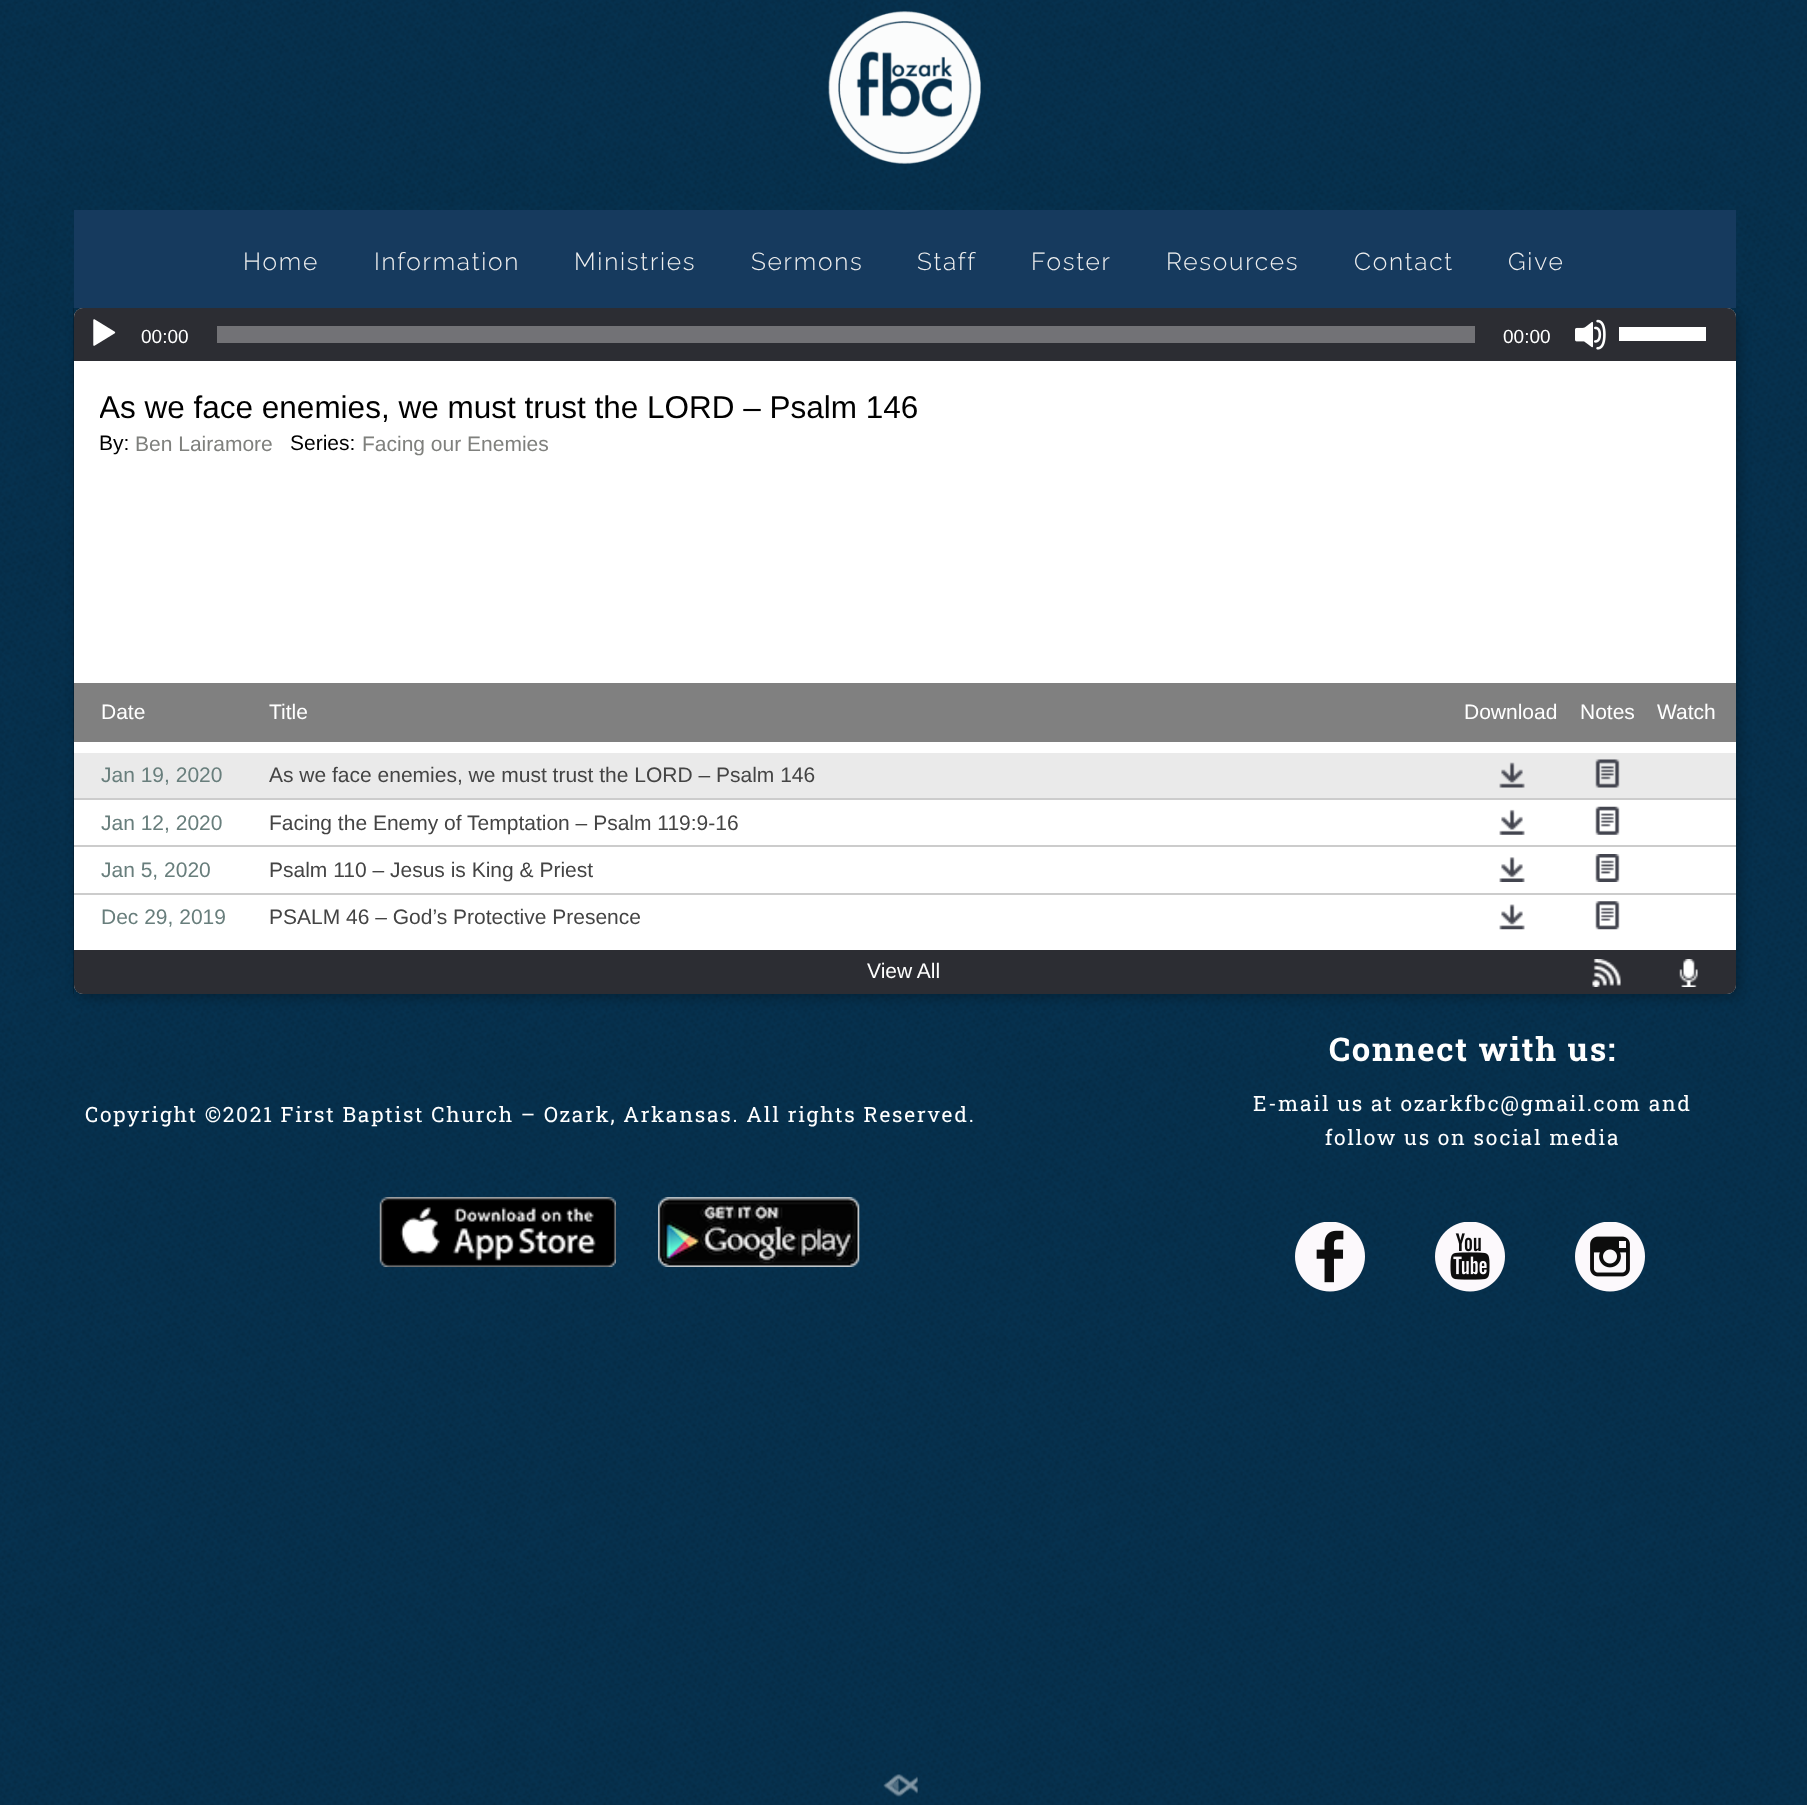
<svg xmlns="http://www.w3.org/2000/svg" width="1807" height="1805">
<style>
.a{font:300 24.5px Raleway;letter-spacing:1.75px;fill:#f0f0f0}
.b{font:19px Liberation Sans;fill:#fff}
.c{font:31.5px Liberation Sans;fill:#000}
.d{font:21px Liberation Sans;fill:#000}
.e{font:21px Liberation Sans;fill:#7f807d}
.f{font:21px Liberation Sans;fill:#fff}
.g{font:21px Liberation Sans;fill:#687e7c}
.h{font:21px Liberation Sans;fill:#444}
.i{font:21px Roboto Slab;letter-spacing:1.75px;fill:#fff}
.j{font:bold 32.75px Roboto Slab;letter-spacing:1.75px;fill:#fff}
</style>
<defs>
<clipPath id="clip1"><path d="M100 385h1470v46H100z"/></clipPath>
</defs>
<rect width="100%" height="100%" fill="#083d61"/>
<image href="1.png" x="0" y="0" width="1807" height="1805"/>
<image href="2.png" x="828" y="11" width="153" height="153"/>
<image href="3.png" x="73" y="308" width="1" height="686"/>
<path fill="#083d61" d="M74 308h1662v686H74z"/>
<image href="4.png" x="73" y="308" width="1663" height="686"/>
<rect fill="#00000040" filter="blur(6px)" x="77" y="312" width="1663" height="686" rx="9"/>
<path fill="#163a5e" d="M74 210h1662v98H74z"/>
<rect fill="#fff" x="74" y="308" width="1662" height="686" rx="9"/>
<path fill="#2c2d33" d="M83 308h1644c5 0 9 4 9 9v44h-1662v-44c0-5 4-9 9-9z"/>
<image href="5.png" x="93" y="319" width="23" height="27"/>
<path fill="#727276" d="M217 326h1258v17H217z"/>
<image href="6.png" x="1575" y="319" width="31" height="31"/>
<path fill="#fff" d="M1619 327h87v14H1619z"/>
<path fill="#808080" d="M74 683h1662v59H74z"/>
<path fill="#eaeaea" d="M74 753h1662v45H74z"/>
<image href="7.png" x="1499" y="762" width="26" height="26"/>
<image href="8.png" x="1595" y="759" width="25" height="29"/>
<path fill="#ccc" d="M74 798h1662v2H74z"/>
<image href="9.png" x="1499" y="809" width="26" height="26"/>
<image href="10.png" x="1595" y="806" width="25" height="29"/>
<path fill="#ccc" d="M74 845h1662v2H74z"/>
<image href="11.png" x="1499" y="857" width="26" height="25"/>
<image href="12.png" x="1595" y="854" width="25" height="28"/>
<path fill="#ccc" d="M74 893h1662v2H74z"/>
<image href="13.png" x="1499" y="904" width="26" height="26"/>
<image href="14.png" x="1595" y="901" width="25" height="29"/>
<path fill="#2c2d33" d="M74 950h1662v35c0 5-4 9-9 9h-1644c-5 0-9-4-9-9z"/>
<image href="15.png" x="1592" y="959" width="29" height="28"/>
<image href="16.png" x="1679" y="959" width="19" height="28"/>
<image href="17.png" x="379" y="1197" width="237" height="70"/>
<image href="18.png" x="658" y="1197" width="202" height="70"/>
<image href="19.png" x="1295" y="1222" width="70" height="70"/>
<image href="20.png" x="1435" y="1222" width="70" height="70"/>
<image href="21.png" x="1575" y="1222" width="70" height="70"/>
<image href="22.png" x="883" y="1774" width="35" height="23"/>
<text class="a" x="243" y="270">Home</text>
<text class="a" x="374" y="270">Information</text>
<text class="a" x="574" y="270">Ministries</text>
<text class="a" x="751" y="270">Sermons</text>
<text class="a" x="917" y="270">Staff</text>
<text class="a" x="1031" y="270">Foster</text>
<text class="a" x="1166" y="270">Resources</text>
<text class="a" x="1354" y="270">Contact</text>
<text class="a" x="1508" y="270">Give</text>
<text class="b" x="141" y="343">00:00</text>
<text class="b" x="1503" y="343">00:00</text>
<g clip-path="url(#clip1)">
<text class="c" x="99" y="418">As we face enemies, we must trust the LORD – Psalm 146</text>
</g>
<text class="d" x="99" y="450">By:</text>
<text class="e" x="135" y="451">Ben Lairamore</text>
<text class="d" x="290" y="450">Series:</text>
<text class="e" x="362" y="451">Facing our Enemies</text>
<text class="f" x="101" y="719">Date</text>
<text class="f" x="269" y="719">Title</text>
<text class="f" x="1464" y="719">Download</text>
<text class="f" x="1580" y="719">Notes</text>
<text class="f" x="1657" y="719">Watch</text>
<text class="g" x="101" y="782">Jan 19, 2020</text>
<text class="h" x="269" y="782">As we face enemies, we must trust the LORD – Psalm 146</text>
<text class="g" x="101" y="830">Jan 12, 2020</text>
<text class="h" x="269" y="830">Facing the Enemy of Temptation – Psalm 119:9-16</text>
<text class="g" x="101" y="877">Jan 5, 2020</text>
<text class="h" x="269" y="877">Psalm 110 – Jesus is King &amp; Priest</text>
<text class="g" x="101" y="924">Dec 29, 2019</text>
<text class="h" x="269" y="924">PSALM 46 – God’s Protective Presence</text>
<text class="f" x="867" y="978">View All</text>
<text class="i" x="85" y="1122">Copyright ©2021 First Baptist Church – Ozark, Arkansas. All rights Reserved.</text>
<text class="j" x="1329" y="1061">Connect with us:</text>
<text class="i" x="1253" y="1111">E-mail us at ozarkfbc@gmail.com and</text>
<text class="i" x="1325" y="1145">follow us on social media</text>
</svg>
